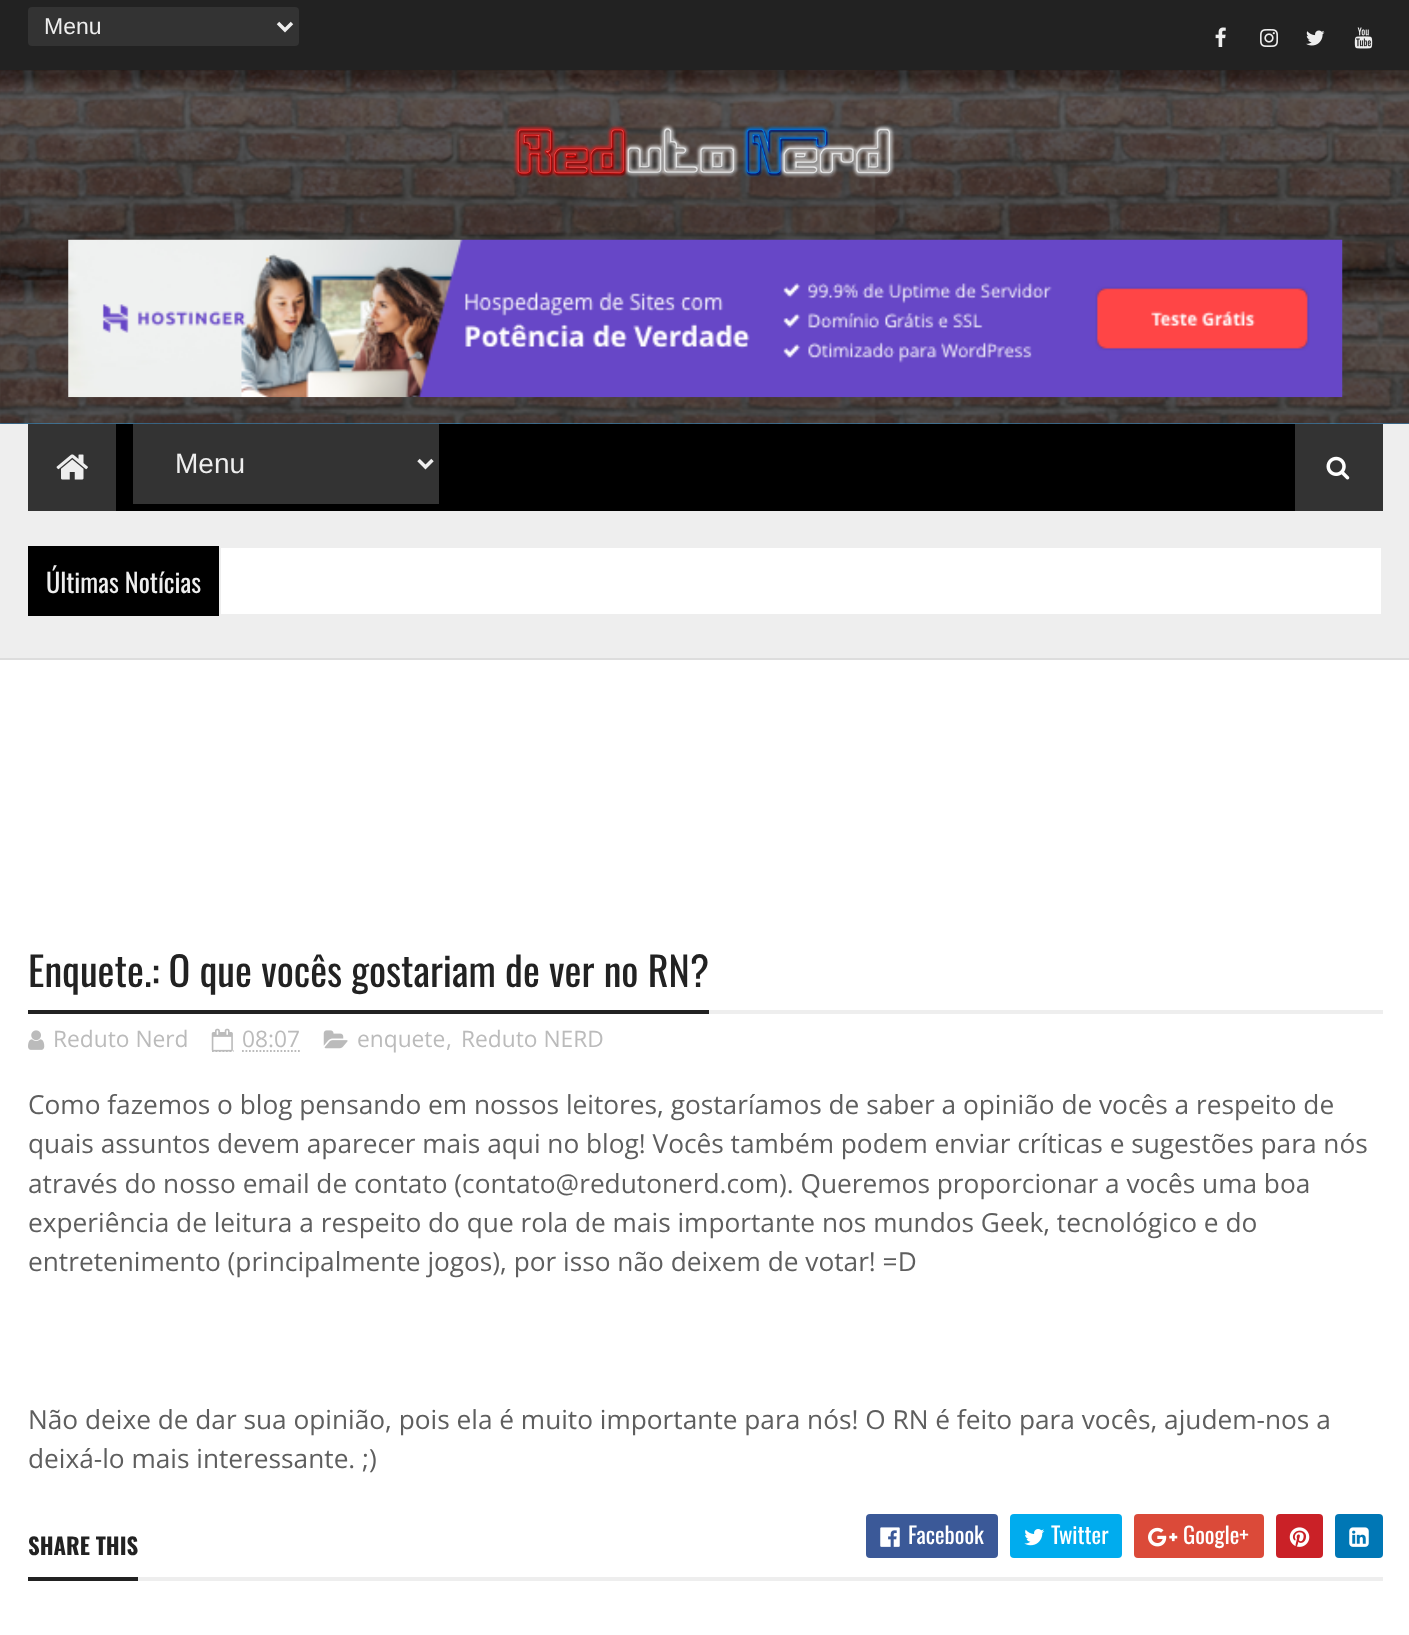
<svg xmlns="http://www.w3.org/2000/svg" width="1409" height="1635">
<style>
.a{font:23px Liberation Sans;fill:#eee}
.b{font:28px Liberation Sans;fill:#eee}
.c{font:26.25px Oswald;fill:#eee}
.d{font:40.25px Oswald;fill:#222}
.e{font:22.75px Open Sans;fill:#bbb}
.f{font:26.25px Open Sans;fill:#5e5e5e}
.g{font:bold 22.75px Oswald;fill:#222}
.h{font:22.75px Oswald;fill:#fff}
</style>
<rect width="100%" height="100%" fill="#eee"/>
<path fill="#222" d="M0 0h1409v70H0z"/>
<rect fill="#333" x="28" y="7" width="271" height="39" rx="4"/>
<path fill="none" stroke="#eee" stroke-width="3.5" d="M278 23l7 7l7-7"/>
<image href="1.png" x="1215" y="27" width="11" height="20"/>
<image href="2.png" x="1260" y="29" width="18" height="18"/>
<image href="3.png" x="1306" y="30" width="19" height="16"/>
<image href="4.png" x="1354" y="27" width="19" height="22"/>
<path fill="#3498db" d="M0 423h1409v1H0z"/>
<image href="5.png" x="0" y="70" width="1409" height="354"/>
<image href="6.png" x="513" y="124" width="382" height="54"/>
<image href="7.png" x="68" y="239" width="1275" height="159"/>
<path fill="#000" d="M116 424h1179v87H116z"/>
<path fill="#333" d="M28 424h88v87H28z"/>
<image href="8.png" x="56" y="454" width="32" height="26"/>
<path fill="#333" d="M133 424h306v80H133z"/>
<path fill="none" stroke="#eee" stroke-width="3.5" d="M418.5 460l7 7l7-7"/>
<path fill="#333" d="M1295 424h88v87H1295z"/>
<image href="9.png" x="1326" y="456" width="24" height="24"/>
<path fill="#fff" d="M221 548h1160v66H221z"/>
<path fill="#000" d="M28 546h191v70H28z"/>
<path fill="none" stroke="#ddd" stroke-width="2" d="M-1 659h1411v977H-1z"/>
<path fill="#fff" d="M0 660h1409v975H0z"/>
<path fill="#eee" d="M709 1010h674v4H709z"/>
<path fill="#222" d="M28 1010h681v4H28z"/>
<image href="10.png" x="28" y="1030" width="17" height="20"/>
<path fill="none" stroke="#bbb" stroke-width="1.8" stroke-dasharray="1.75 1.75" d="M212 1051h21.5"/>
<image href="11.png" x="211" y="1028" width="22" height="24"/>
<path fill="none" stroke="#bbb" stroke-width="1.8" stroke-dasharray="1.75 1.75" d="M242 1051h58"/>
<image href="12.png" x="323" y="1030" width="25" height="19"/>
<path fill="#eee" d="M138 1577h1245v4H138z"/>
<path fill="#222" d="M28 1577h110v4H28z"/>
<rect fill="#3b5998" x="866" y="1514" width="132" height="44" rx="4"/>
<image href="13.png" x="880" y="1527" width="20" height="20"/>
<rect fill="#00acee" x="1010" y="1514" width="112" height="44" rx="4"/>
<image href="14.png" x="1024" y="1529" width="21" height="17"/>
<rect fill="#db4a39" x="1134" y="1514" width="130" height="44" rx="4"/>
<image href="15.png" x="1148" y="1527" width="30" height="20"/>
<rect fill="#ca2127" x="1276" y="1514" width="47" height="44" rx="4"/>
<image href="16.png" x="1289" y="1527" width="21" height="20"/>
<rect fill="#0077b5" x="1335" y="1514" width="48" height="44" rx="4"/>
<image href="17.png" x="1349" y="1527" width="20" height="20"/>
<text class="a" x="44" y="34">Menu</text>
<text class="b" x="175" y="473">Menu</text>
<text class="c" x="46" y="593">Últimas Notícias</text>
<text class="d" x="28" y="987">Enquete.: O que vocês gostariam de ver no RN?</text>
<text class="e" x="53" y="1047">Reduto Nerd</text>
<text class="e" x="242" y="1047">08:07</text>
<text class="e" x="357" y="1047">enquete</text>
<text class="e" x="446" y="1047">,</text>
<text class="e" x="461" y="1047">Reduto NERD</text>
<text class="f" x="28" y="1114">Como fazemos o blog pensando em nossos leitores, gostaríamos de saber a opinião de vocês a respeito de</text>
<text class="f" x="28" y="1153">quais assuntos devem aparecer mais aqui no blog! Vocês também podem enviar críticas e sugestões para nós</text>
<text class="f" x="28" y="1193">através do nosso email de contato (contato@redutonerd.com). Queremos proporcionar a vocês uma boa</text>
<text class="f" x="28" y="1232">experiência de leitura a respeito do que rola de mais importante nos mundos Geek, tecnológico e do</text>
<text class="f" x="28" y="1271">entretenimento (principalmente jogos), por isso não deixem de votar! =D</text>
<text class="f" x="28" y="1429">Não deixe de dar sua opinião, pois ela é muito importante para nós! O RN é feito para vocês, ajudem-nos a</text>
<text class="f" x="28" y="1468">deixá-lo mais interessante. ;)</text>
<text class="g" x="28" y="1555">SHARE THIS</text>
<text class="h" x="908" y="1544">Facebook</text>
<text class="h" x="1051" y="1544">Twitter</text>
<text class="h" x="1183" y="1544">Google+</text>
</svg>
